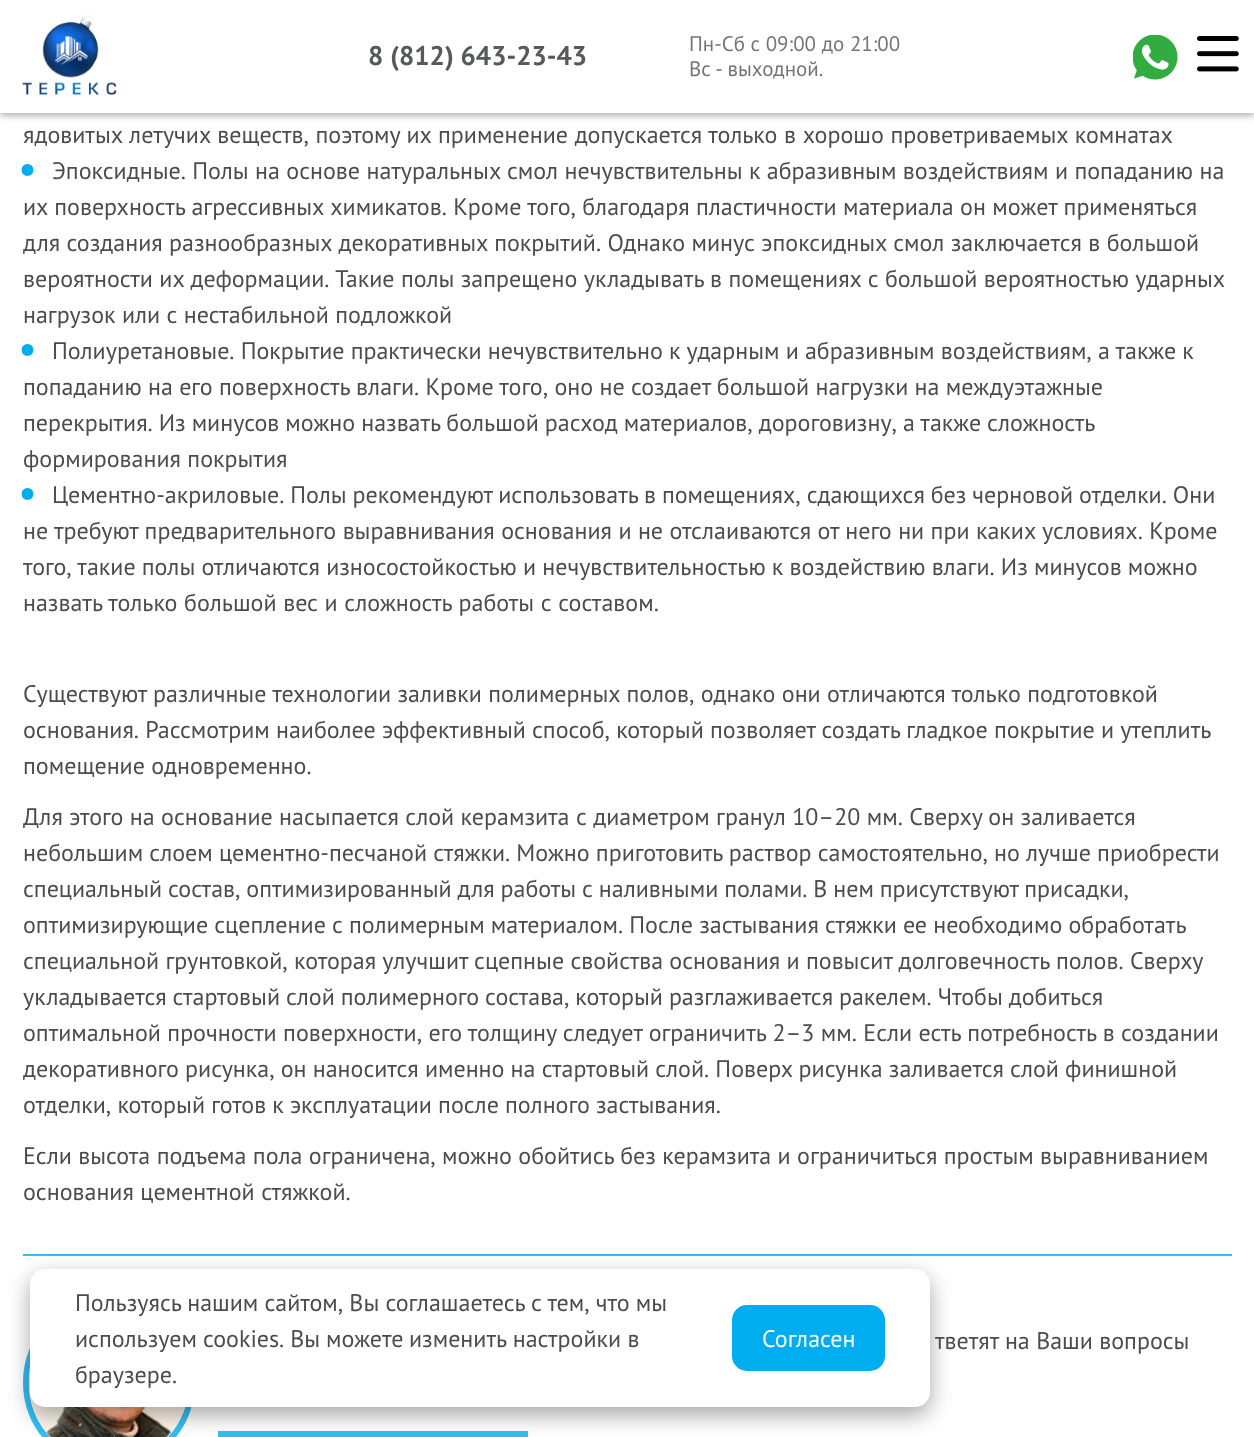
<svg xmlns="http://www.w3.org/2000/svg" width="1254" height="1437">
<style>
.a{font:bold 27px PT Sans;fill:#58595b}
.b{font:21px PT Sans;fill:#777373}
.c{font:24px PT Sans;fill:#4c4c4c}
.d{font:42px PT Sans;fill:#00aeef}
.e{font:24px PT Sans;fill:#fff}
</style>
<rect width="100%" height="100%" fill="#fff"/>
<path fill="#1b1a1a52" filter="blur(3px)" d="M0 3h1254v113H0z"/>
<path fill="#fff" d="M0 0h1254v113H0z"/>
<image href="1.png" x="22" y="15" width="95" height="80"/>
<image href="2.png" x="1133" y="35" width="45" height="45"/>
<image href="3.png" x="1197" y="36" width="42" height="36"/>
<path fill="#33bef2" d="M23 1254h1209v2H23z"/>
<rect fill="none" stroke="#33bef2" stroke-width="6" x="26" y="1299" width="166" height="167" rx="83"/>
<image href="4.png" x="28" y="1366" width="157" height="71"/>
<path fill="#33bef2" d="M218 1431h310v6H218z"/>
<rect fill="#00000059" filter="blur(11px)" x="30" y="1277" width="900" height="138" rx="15"/>
<rect fill="#fff" x="30" y="1269" width="900" height="138" rx="15"/>
<rect fill="#00aeef" x="732" y="1305" width="153" height="66" rx="15"/>
<text class="a" x="368" y="65">8 (812) 643-23-43</text>
<text class="b" x="689" y="51">Пн-Сб с 09:00 до 21:00</text>
<text class="b" x="689" y="76" word-spacing="-1">Вс - выходной.</text>
<text class="c" x="23" y="143" word-spacing="0.25">ядовитых летучих веществ, поэтому их применение допускается только в хорошо проветриваемых комнатах</text>
<text class="d" x="18" y="183">•</text>
<text class="c" x="52" y="179">Эпоксидные. Полы на основе натуральных смол нечувствительны к абразивным воздействиям и попаданию на</text>
<text class="c" x="23" y="215">их поверхность агрессивных химикатов. Кроме того, благодаря пластичности материала он может применяться</text>
<text class="c" x="23" y="251">для создания разнообразных декоративных покрытий. Однако минус эпоксидных смол заключается в большой</text>
<text class="c" x="23" y="287">вероятности их деформации. Такие полы запрещено укладывать в помещениях с большой вероятностью ударных</text>
<text class="c" x="23" y="323">нагрузок или с нестабильной подложкой</text>
<text class="d" x="18" y="363">•</text>
<text class="c" x="52" y="359" word-spacing="-0.25">Полиуретановые. Покрытие практически нечувствительно к ударным и абразивным воздействиям, а также к</text>
<text class="c" x="23" y="395" word-spacing="-0.1">попаданию на его поверхность влаги. Кроме того, оно не создает большой нагрузки на междуэтажные</text>
<text class="c" x="23" y="431" word-spacing="-0.4">перекрытия. Из минусов можно назвать большой расход материалов, дороговизну, а также сложность</text>
<text class="c" x="23" y="467">формирования покрытия</text>
<text class="d" x="18" y="507">•</text>
<text class="c" x="52" y="503" word-spacing="-0.5">Цементно-акриловые. Полы рекомендуют использовать в помещениях, сдающихся без черновой отделки. Они</text>
<text class="c" x="23" y="539">не требуют предварительного выравнивания основания и не отслаиваются от него ни при каких условиях. Кроме</text>
<text class="c" x="23" y="575" word-spacing="-0.25">того, такие полы отличаются износостойкостью и нечувствительностью к воздействию влаги. Из минусов можно</text>
<text class="c" x="23" y="611" word-spacing="0.25">назвать только большой вес и сложность работы с составом.</text>
<text class="c" x="23" y="702">Существуют различные технологии заливки полимерных полов, однако они отличаются только подготовкой</text>
<text class="c" x="23" y="738" word-spacing="-0.25">основания. Рассмотрим наиболее эффективный способ, который позволяет создать гладкое покрытие и утеплить</text>
<text class="c" x="23" y="774">помещение одновременно.</text>
<text class="c" x="23" y="825">Для этого на основание насыпается слой керамзита с диаметром гранул 10–20 мм. Сверху он заливается</text>
<text class="c" x="23" y="861" word-spacing="-0.25">небольшим слоем цементно-песчаной стяжки. Можно приготовить раствор самостоятельно, но лучше приобрести</text>
<text class="c" x="23" y="897" word-spacing="-0.5">специальный состав, оптимизированный для работы с наливными полами. В нем присутствуют присадки,</text>
<text class="c" x="23" y="933" word-spacing="-0.25">оптимизирующие сцепление с полимерным материалом. После застывания стяжки ее необходимо обработать</text>
<text class="c" x="23" y="969" word-spacing="-0.1">специальной грунтовкой, которая улучшит сцепные свойства основания и повысит долговечность полов. Сверху</text>
<text class="c" x="23" y="1005" word-spacing="-0.5">укладывается стартовый слой полимерного состава, который разглаживается ракелем. Чтобы добиться</text>
<text class="c" x="23" y="1041">оптимальной прочности поверхности, его толщину следует ограничить 2–3 мм. Если есть потребность в создании</text>
<text class="c" x="23" y="1077" word-spacing="-0.25">декоративного рисунка, он наносится именно на стартовый слой. Поверх рисунка заливается слой финишной</text>
<text class="c" x="23" y="1113" word-spacing="-0.25">отделки, который готов к эксплуатации после полного застывания.</text>
<text class="c" x="23" y="1164">Если высота подъема пола ограничена, можно обойтись без керамзита и ограничиться простым выравниванием</text>
<text class="c" x="23" y="1200">основания цементной стяжкой.</text>
<text class="c" x="935" y="1349">тветят на Ваши вопросы</text>
<text class="c" x="75" y="1311" word-spacing="-0.25">Пользуясь нашим сайтом, Вы соглашаетесь с тем, что мы</text>
<text class="c" x="75" y="1347" word-spacing="-0.5">используем cookies. Вы можете</text>
<text class="c" x="409" y="1347">изменить настройки в</text>
<text class="c" x="75" y="1383">браузере.</text>
<text class="e" x="762" y="1347">Согласен</text>
</svg>
